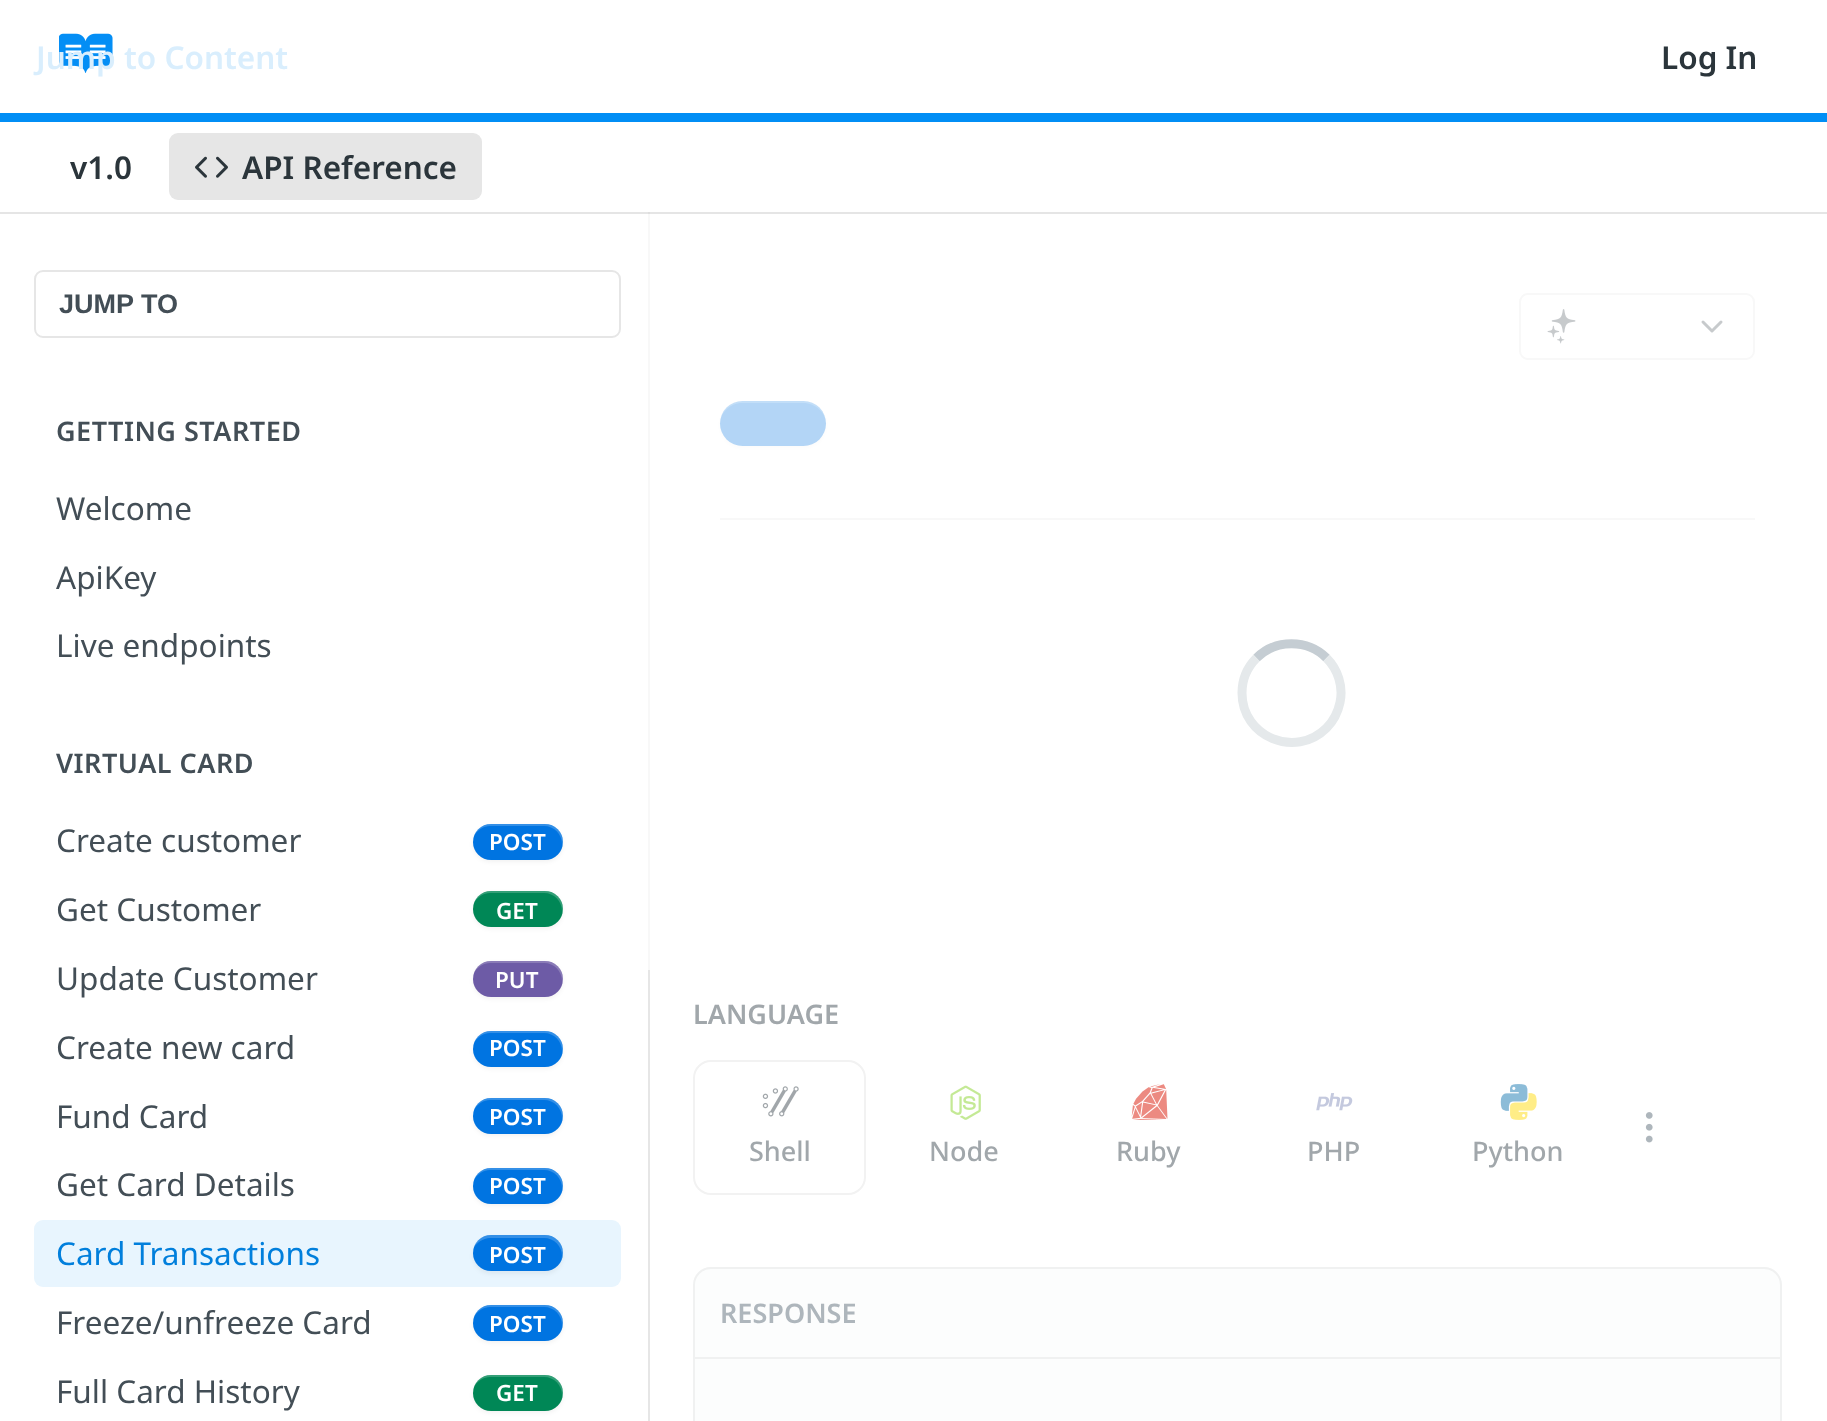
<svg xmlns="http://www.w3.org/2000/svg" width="1827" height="1421">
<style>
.a{font:600 31.5px Noto Sans;fill:#d9eefd}
.b{font:600 31.5px Noto Sans;fill:#2b353b}
.c{font:bold 27px Liberation Sans;fill:#434e56}
.d{font:600 27px Noto Sans;letter-spacing:0.5px;fill:#434e56}
.e{font:31.5px Noto Sans;fill:#434e56}
.f{font:600 22.5px Noto Sans;fill:#fff}
.g{font:31.5px Noto Sans;fill:#017fdc}
.h{font:600 27px Noto Sans;fill:#a1a7ab}
.i{font:500 27px Noto Sans;fill:#a1a7ab}
.j{font:600 27px Noto Sans;fill:#aeb6bc}
</style>
<rect width="100%" height="100%" fill="#fff"/>
<path fill="#e6e6e6" d="M2 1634h648v-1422h-2v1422z"/>
<path fill="#e6e6e6" d="M720 518h1035v2H720z"/>
<rect fill="none" stroke="#e6e6e6" stroke-width="2" x="1520" y="294" width="234" height="65" rx="8"/>
<image href="3.png" x="1547" y="309" width="29" height="35"/>
<path fill="none" stroke="#434e56" stroke-width="3" stroke-linecap="round" stroke-linejoin="round" d="M1703 322l9 9l9-9"/>
<rect fill="#0000000d" filter="blur(2px)" x="720" y="403" width="106" height="45" rx="22.5"/>
<rect fill="#0074e1" x="720" y="401" width="106" height="45" rx="22.5"/>
<path fill="#ffffff33" d="M742 403h61c13 0 23 10 23 21c0-13-10-23-22-23h-62c-12 0-22 10-22 23c0-11 10-21 22-21z"/>
<path fill="#ffffffb3" d="M648 212h1107v758H648z"/>
<path fill="#0000001a" d="M0 212h1827v2H0z"/>
<path fill="#018ef5" d="M0 113h1827v9H0z"/>
<image href="1.png" x="59" y="33" width="54" height="40"/>
<rect fill="#e6e6e6" x="169" y="133" width="313" height="67" rx="9"/>
<image href="2.png" x="195" y="156" width="33" height="22"/>
<rect fill="none" stroke="#e6e6e6" stroke-width="2" x="35" y="271" width="585" height="66" rx="8"/>
<rect fill="#0000000d" filter="blur(2px)" x="473" y="826" width="90" height="36" rx="18"/>
<rect fill="#0074e1" x="473" y="824" width="90" height="36" rx="18"/>
<path fill="#ffffff33" d="M490 826h54c10 0 18 8 18 18c0 2 0 5-1 7c1-3 2-6 2-9c0-10-8-18-18-18h-54c-8 0-15 5-17 12c3-6 10-10 16-10z"/>
<rect fill="#0000000d" filter="blur(2px)" x="473" y="893" width="90" height="36" rx="18"/>
<rect fill="#008756" x="473" y="891" width="90" height="36" rx="18"/>
<path fill="#ffffff33" d="M490 893h54c10 0 18 8 18 18c0 2 0 5-1 7c1-3 2-6 2-9c0-10-8-18-18-18h-54c-8 0-15 5-17 12c3-6 10-10 16-10z"/>
<rect fill="#0000000d" filter="blur(2px)" x="473" y="963" width="90" height="36" rx="18"/>
<rect fill="#6d5ba6" x="473" y="961" width="90" height="36" rx="18"/>
<path fill="#ffffff33" d="M490 963h54c10 0 18 8 18 18c0 2 0 5-1 7c1-3 2-6 2-9c0-10-8-18-18-18h-54c-8 0-15 5-17 12c3-6 10-10 16-10z"/>
<rect fill="#0000000d" filter="blur(2px)" x="473" y="1033" width="90" height="36" rx="18"/>
<rect fill="#0074e1" x="473" y="1031" width="90" height="36" rx="18"/>
<path fill="#ffffff33" d="M490 1033h54c10 0 18 8 18 18c0 2 0 5-1 7c1-3 2-6 2-9c0-10-8-18-18-18h-54c-8 0-15 5-17 12c3-6 10-10 16-10z"/>
<rect fill="#0000000d" filter="blur(2px)" x="473" y="1100" width="90" height="36" rx="18"/>
<rect fill="#0074e1" x="473" y="1098" width="90" height="36" rx="18"/>
<path fill="#ffffff33" d="M490 1100h54c10 0 18 8 18 18c0 2 0 5-1 7c1-3 2-6 2-9c0-10-8-18-18-18h-54c-8 0-15 5-17 12c3-6 10-10 16-10z"/>
<rect fill="#0000000d" filter="blur(2px)" x="473" y="1170" width="90" height="36" rx="18"/>
<rect fill="#0074e1" x="473" y="1168" width="90" height="36" rx="18"/>
<path fill="#ffffff33" d="M490 1170h54c10 0 18 8 18 18c0 2 0 5-1 7c1-3 2-6 2-9c0-10-8-18-18-18h-54c-8 0-15 5-17 12c3-6 10-10 16-10z"/>
<rect fill="#e8f5fe" x="34" y="1220" width="587" height="67" rx="9"/>
<rect fill="#0000000d" filter="blur(2px)" x="473" y="1238" width="90" height="36" rx="18"/>
<rect fill="#0074e1" x="473" y="1235" width="90" height="36" rx="18"/>
<path fill="#ffffff33" d="M490 1238h54c10 0 18 8 18 18l-1 5c1-3 2-5 2-8c0-10-8-18-18-18h-54c-9 0-16 6-18 14c3-6 10-11 17-11z"/>
<rect fill="#0000000d" filter="blur(2px)" x="473" y="1307" width="90" height="36" rx="18"/>
<rect fill="#0074e1" x="473" y="1305" width="90" height="36" rx="18"/>
<path fill="#ffffff33" d="M490 1307h54c10 0 18 8 18 18c0 2 0 5-1 7c1-3 2-6 2-9c0-10-8-18-18-18h-54c-8 0-15 5-17 12c3-6 10-10 16-10z"/>
<rect fill="#0000000d" filter="blur(2px)" x="473" y="1377" width="90" height="36" rx="18"/>
<rect fill="#008756" x="473" y="1375" width="90" height="36" rx="18"/>
<path fill="#ffffff33" d="M490 1377h54c10 0 18 8 18 18c0 2 0 5-1 7c1-3 2-6 2-9c0-10-8-18-18-18h-54c-8 0-15 5-17 12c3-6 10-10 16-10z"/>
<path fill="none" stroke="#c5cdd3" stroke-width="9" d="M1256.5 658c19-19 51-19 70 0"/>
<path fill="none" stroke="#e5e9eb" stroke-width="9" d="M1326.5 658c11.5 11.5 17 28.5 13.5 44.5c-2 9.5-6.5 18.5-13.5 25.5c-31 31-84.5 9-84.5-35c0-13 5.5-26 14.5-35"/>
<image href="4.png" x="1645" y="1112" width="8" height="31"/>
<rect fill="none" stroke="#f2f2f2" stroke-width="2" x="694" y="1061" width="171" height="133" rx="17"/>
<image href="5.png" x="762" y="1086" width="37" height="31"/>
<image href="6.png" x="950" y="1085" width="31" height="35"/>
<image href="7.png" x="1131" y="1084" width="37" height="36"/>
<image href="8.png" x="1316" y="1093" width="37" height="18"/>
<image href="9.png" x="1500" y="1084" width="28" height="27"/>
<image href="10.png" x="1510" y="1093" width="27" height="27"/>
<path fill="#fcfdfd" d="M711 1267h1053c10 0 18 8 18 18v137h-1089v-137c0-10 8-18 18-18z"/>
<rect fill="none" stroke="#f0f1f1" stroke-width="2" x="694" y="1268" width="1087" height="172" rx="17"/>
<path fill="#f0f1f1" d="M695 1357h1085v2H695z"/>
<text class="a" x="36" y="69">Jump to Content</text>
<text class="b" x="1661" y="69">Log In</text>
<text class="b" x="70" y="179">v1.0</text>
<text class="b" x="242" y="179">API Reference</text>
<text class="c" x="59" y="313">JUMP TO</text>
<text class="d" x="56" y="441">GETTING STARTED</text>
<text class="e" x="56" y="520">Welcome</text>
<text class="e" x="56" y="589">ApiKey</text>
<text class="e" x="56" y="657">Live endpoints</text>
<text class="d" x="56" y="773">VIRTUAL CARD</text>
<text class="e" x="56" y="852">Create customer</text>
<text class="f" x="489" y="850">POST</text>
<text class="e" x="56" y="921">Get Customer</text>
<text class="f" x="496" y="919">GET</text>
<text class="e" x="56" y="990">Update Customer</text>
<text class="f" x="495" y="988">PUT</text>
<text class="e" x="56" y="1059">Create new card</text>
<text class="f" x="489" y="1056">POST</text>
<text class="e" x="56" y="1128">Fund Card</text>
<text class="f" x="489" y="1125">POST</text>
<text class="e" x="56" y="1196">Get Card Details</text>
<text class="f" x="489" y="1194">POST</text>
<text class="g" x="56" y="1265">Card Transactions</text>
<text class="f" x="489" y="1263">POST</text>
<text class="e" x="56" y="1334">Freeze/unfreeze Card</text>
<text class="f" x="489" y="1332">POST</text>
<text class="e" x="56" y="1403">Full Card History</text>
<text class="f" x="496" y="1401">GET</text>
<text class="h" x="693" y="1024">LANGUAGE</text>
<text class="i" x="749" y="1161">Shell</text>
<text class="i" x="929" y="1161">Node</text>
<text class="i" x="1116" y="1161">Ruby</text>
<text class="i" x="1307" y="1161">PHP</text>
<text class="i" x="1472" y="1161">Python</text>
<text class="j" x="720" y="1323">RESPONSE</text>
</svg>
